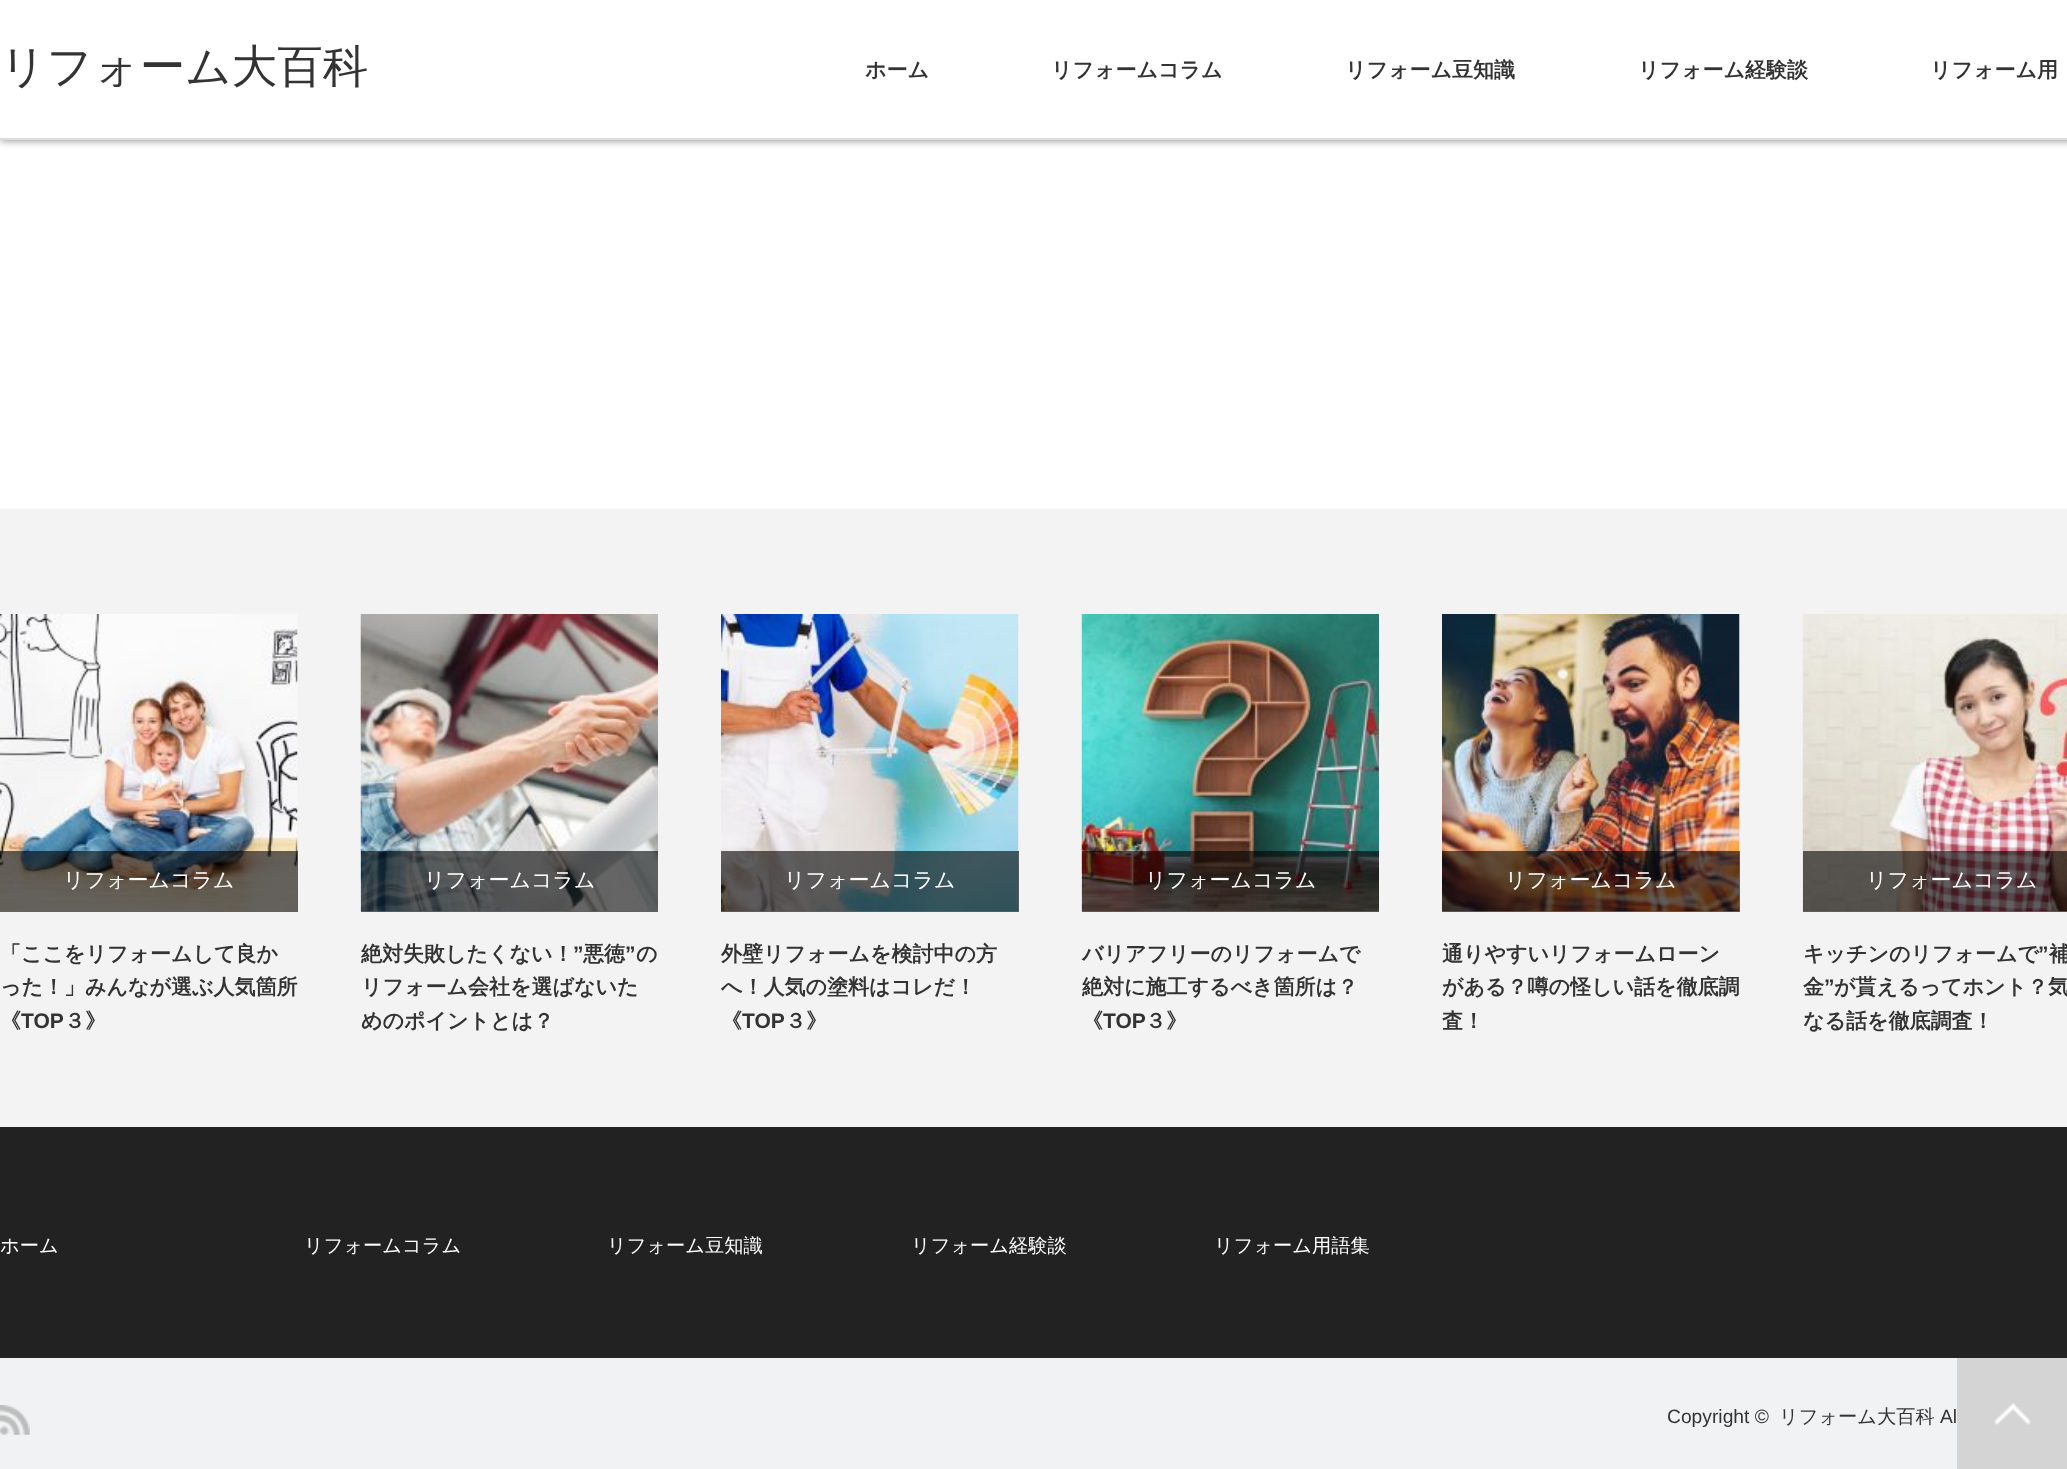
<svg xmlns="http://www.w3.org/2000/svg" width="2067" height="1469">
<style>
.a{font:500 45.5px WenQuanYi Zen Hei;fill:#333}
.b{font:bold 21px WenQuanYi Zen Hei;fill:#333}
.c{font:500 21px WenQuanYi Zen Hei;fill:#fff}
.d{font:bold 21px Liberation Sans;fill:#333}
.e{font:500 19.25px WenQuanYi Zen Hei;fill:#fff}
.f{font:19.25px Liberation Sans;fill:#333}
.g{font:500 19.25px WenQuanYi Zen Hei;fill:#333}
</style>
<defs>
<clipPath id="clip1"><path d="M361 938h297v102H361z"/></clipPath>
<clipPath id="clip2"><path d="M1082 938h297v102H1082z"/></clipPath>
</defs>
<rect width="100%" height="100%" fill="#fff"/>
<path fill="#00000080" filter="blur(4.5px)" d="M0 0h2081v140H0z"/>
<path fill="#fff" d="M0 0h2067v138H0z"/>
<path fill="#ddd" d="M0 138h2067v2H0z"/>
<path fill="#f3f3f3" d="M0 509h2067v618H0z"/>
<image href="1.png" x="0" y="614" width="298" height="298"/>
<path fill="#00000099" d="M0 851h298v61H0z"/>
<image href="2.png" x="360" y="614" width="298" height="298"/>
<path fill="#00000099" d="M361 851h297v61H361z"/>
<image href="3.png" x="721" y="614" width="298" height="298"/>
<path fill="#00000099" d="M721 851h298v61H721z"/>
<image href="4.png" x="1081" y="614" width="298" height="298"/>
<path fill="#00000099" d="M1082 851h297v61H1082z"/>
<image href="5.png" x="1442" y="614" width="298" height="298"/>
<path fill="#00000099" d="M1442 851h298v61H1442z"/>
<image href="6.png" x="1802" y="614" width="265" height="298"/>
<path fill="#00000099" d="M1803 851h264v61H1803z"/>
<path fill="#222" d="M0 1127h2067v231H0z"/>
<path fill="#f1f2f4" d="M0 1358h2067v111H0z"/>
<image href="7.png" x="0" y="1405" width="30" height="30"/>
<path fill="#c8c8c8b3" d="M1957 1358h110v111H1957z"/>
<image href="8.png" x="1994" y="1403" width="37" height="22"/>
<text class="a" x="0" y="82">リフォーム大百科</text>
<text class="b" x="865" y="77">ホーム</text>
<text class="b" x="1051" y="77">リフォームコラム</text>
<text class="b" x="1345" y="77">リフォーム豆知識</text>
<text class="b" x="1638" y="77">リフォーム経験談</text>
<text class="b" x="1930" y="77">リフォーム用</text>
<text class="c" x="63" y="887">リフォームコラム</text>
<text class="b" x="0" y="961">「ここをリフォームして良か</text>
<text class="b" x="0" y="994">った！」みんなが選ぶ人気箇所</text>
<text class="b" x="0" y="1028">《</text>
<text class="d" x="21" y="1028">TOP</text>
<text class="b" x="64" y="1028">３》</text>
<text class="c" x="424" y="887">リフォームコラム</text>
<g clip-path="url(#clip1)">
<text class="b" x="361" y="961">絶対失敗したくない！</text>
</g>
<text class="d" x="573" y="961">”</text>
<text class="b" x="583" y="961">悪徳</text>
<text class="d" x="625" y="961">”</text>
<text class="b" x="636" y="961">の</text>
<text class="b" x="361" y="994">リフォーム会社を選ばないた</text>
<text class="b" x="361" y="1028">めのポイントとは？</text>
<text class="c" x="784" y="887">リフォームコラム</text>
<text class="b" x="721" y="961">外壁リフォームを検討中の方</text>
<text class="b" x="721" y="994">へ！人気の塗料はコレだ！</text>
<text class="b" x="721" y="1028">《</text>
<text class="d" x="742" y="1028">TOP</text>
<text class="b" x="785" y="1028">３》</text>
<text class="c" x="1145" y="887">リフォームコラム</text>
<text class="b" x="1082" y="961">バリアフリーのリフォームで</text>
<g clip-path="url(#clip2)">
<text class="b" x="1082" y="994">絶対に施工するべき箇所は？</text>
</g>
<text class="b" x="1082" y="1028">《</text>
<text class="d" x="1103" y="1028">TOP</text>
<text class="b" x="1145" y="1028">３》</text>
<text class="c" x="1505" y="887">リフォームコラム</text>
<text class="b" x="1442" y="961">通りやすいリフォームローン</text>
<text class="b" x="1442" y="994">がある？噂の怪しい話を徹底調</text>
<text class="b" x="1442" y="1028">査！</text>
<text class="c" x="1866" y="887">リフォームコラム</text>
<text class="b" x="1803" y="961">キッチンのリフォームで</text>
<text class="d" x="2038" y="961">”</text>
<text class="b" x="2049" y="961">補</text>
<text class="b" x="1803" y="994">金</text>
<text class="d" x="1824" y="994">”</text>
<text class="b" x="1834" y="994">が貰えるってホント？気</text>
<text class="b" x="1803" y="1028">なる話を徹底調査！</text>
<text class="e" x="0" y="1252">ホーム</text>
<text class="e" x="304" y="1252">リフォームコラム</text>
<text class="e" x="607" y="1252">リフォーム豆知識</text>
<text class="e" x="911" y="1252">リフォーム経験談</text>
<text class="e" x="1214" y="1252">リフォーム用語集</text>
<text class="f" x="1667" y="1423">Copyright ©</text>
<text class="g" x="1779" y="1423">リフォーム大百科</text>
<text class="f" x="1940" y="1423">Al</text>
</svg>
